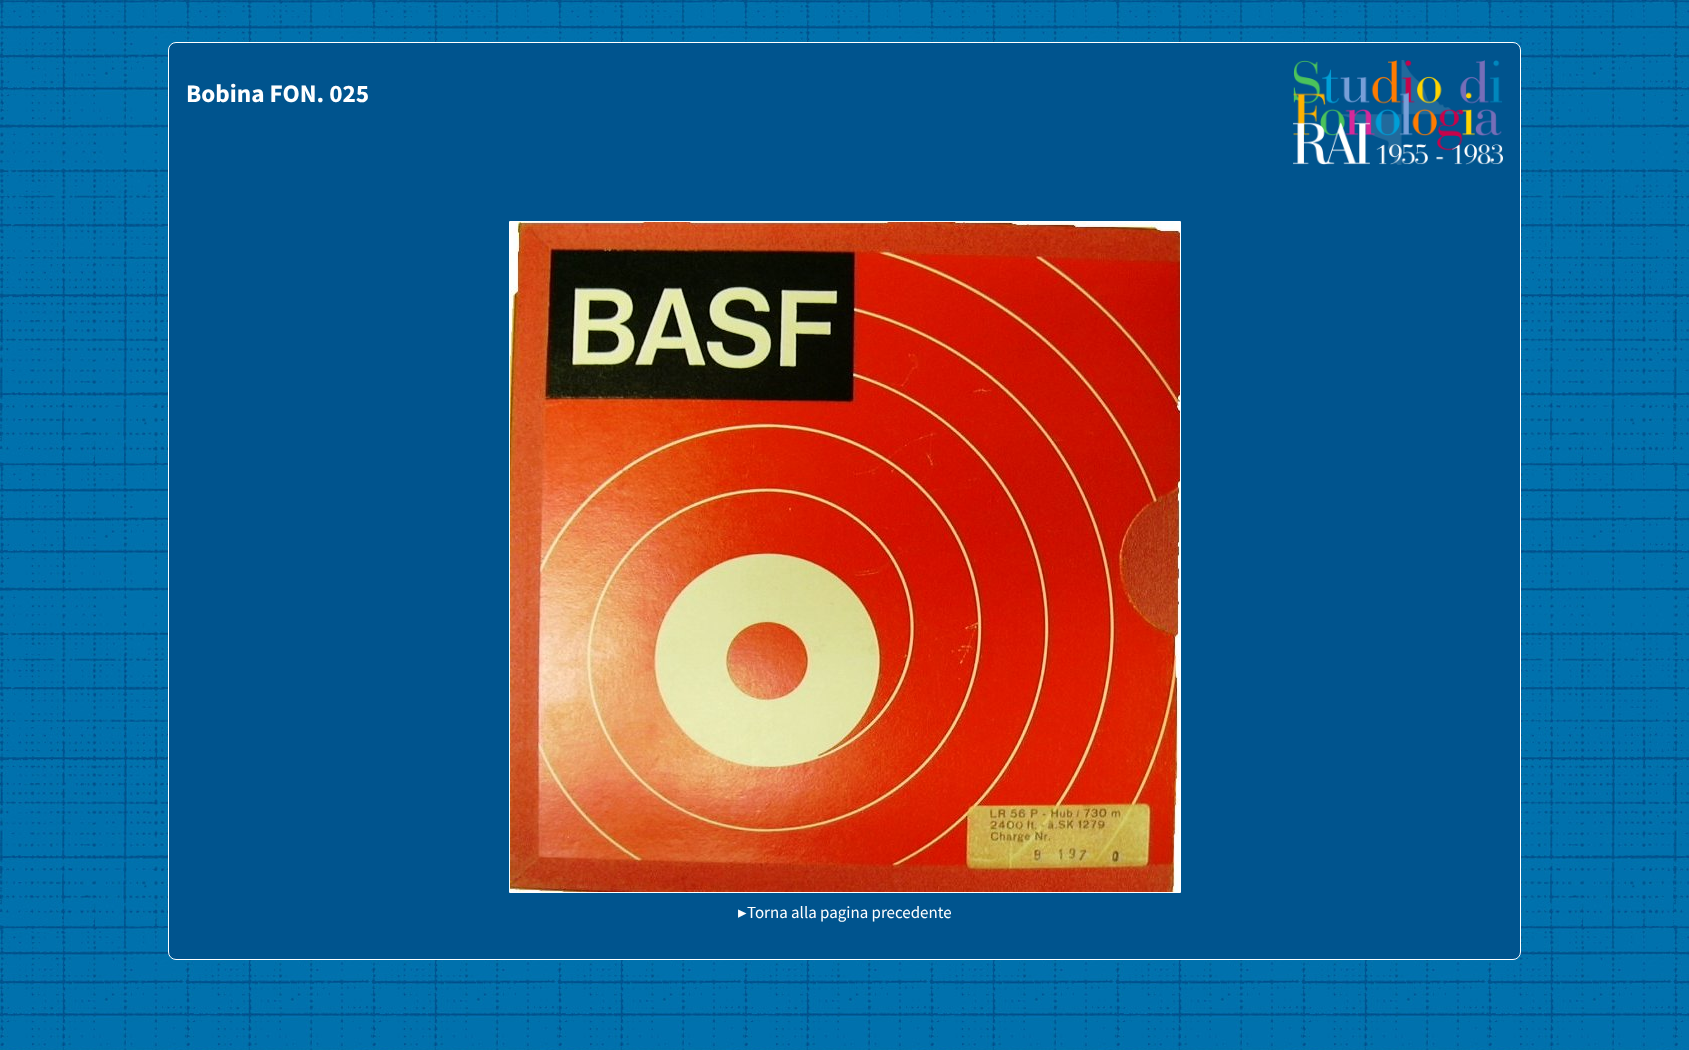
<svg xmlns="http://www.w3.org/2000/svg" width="1689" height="1050">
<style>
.a{font:bold 25.25px Source Sans Pro;fill:#fff}
.b{font:16.9px DejaVu Sans;fill:#fff}
.c{font:16.9px Source Sans Pro;fill:#fff}
</style>
<rect width="100%" height="100%" fill="#fff"/>
<image href="1.png" x="0" y="0" width="1689" height="1050"/>
<rect fill="#00548e" stroke="#fff" x="168.5" y="42.5" width="1352" height="917" rx="7.5"/>
<image href="2.png" x="1293" y="60" width="210" height="105"/>
<path fill="none" stroke="#fff" d="M509.5 221.5h671v671H509.5z"/>
<image href="3.png" x="510" y="222" width="670" height="670"/>
<text class="a" x="186" y="102">Bobina FON. 025</text>
<text class="b" x="738" y="918">▸</text>
<text class="c" x="747" y="918">Torna alla pagina precedente</text>
</svg>
